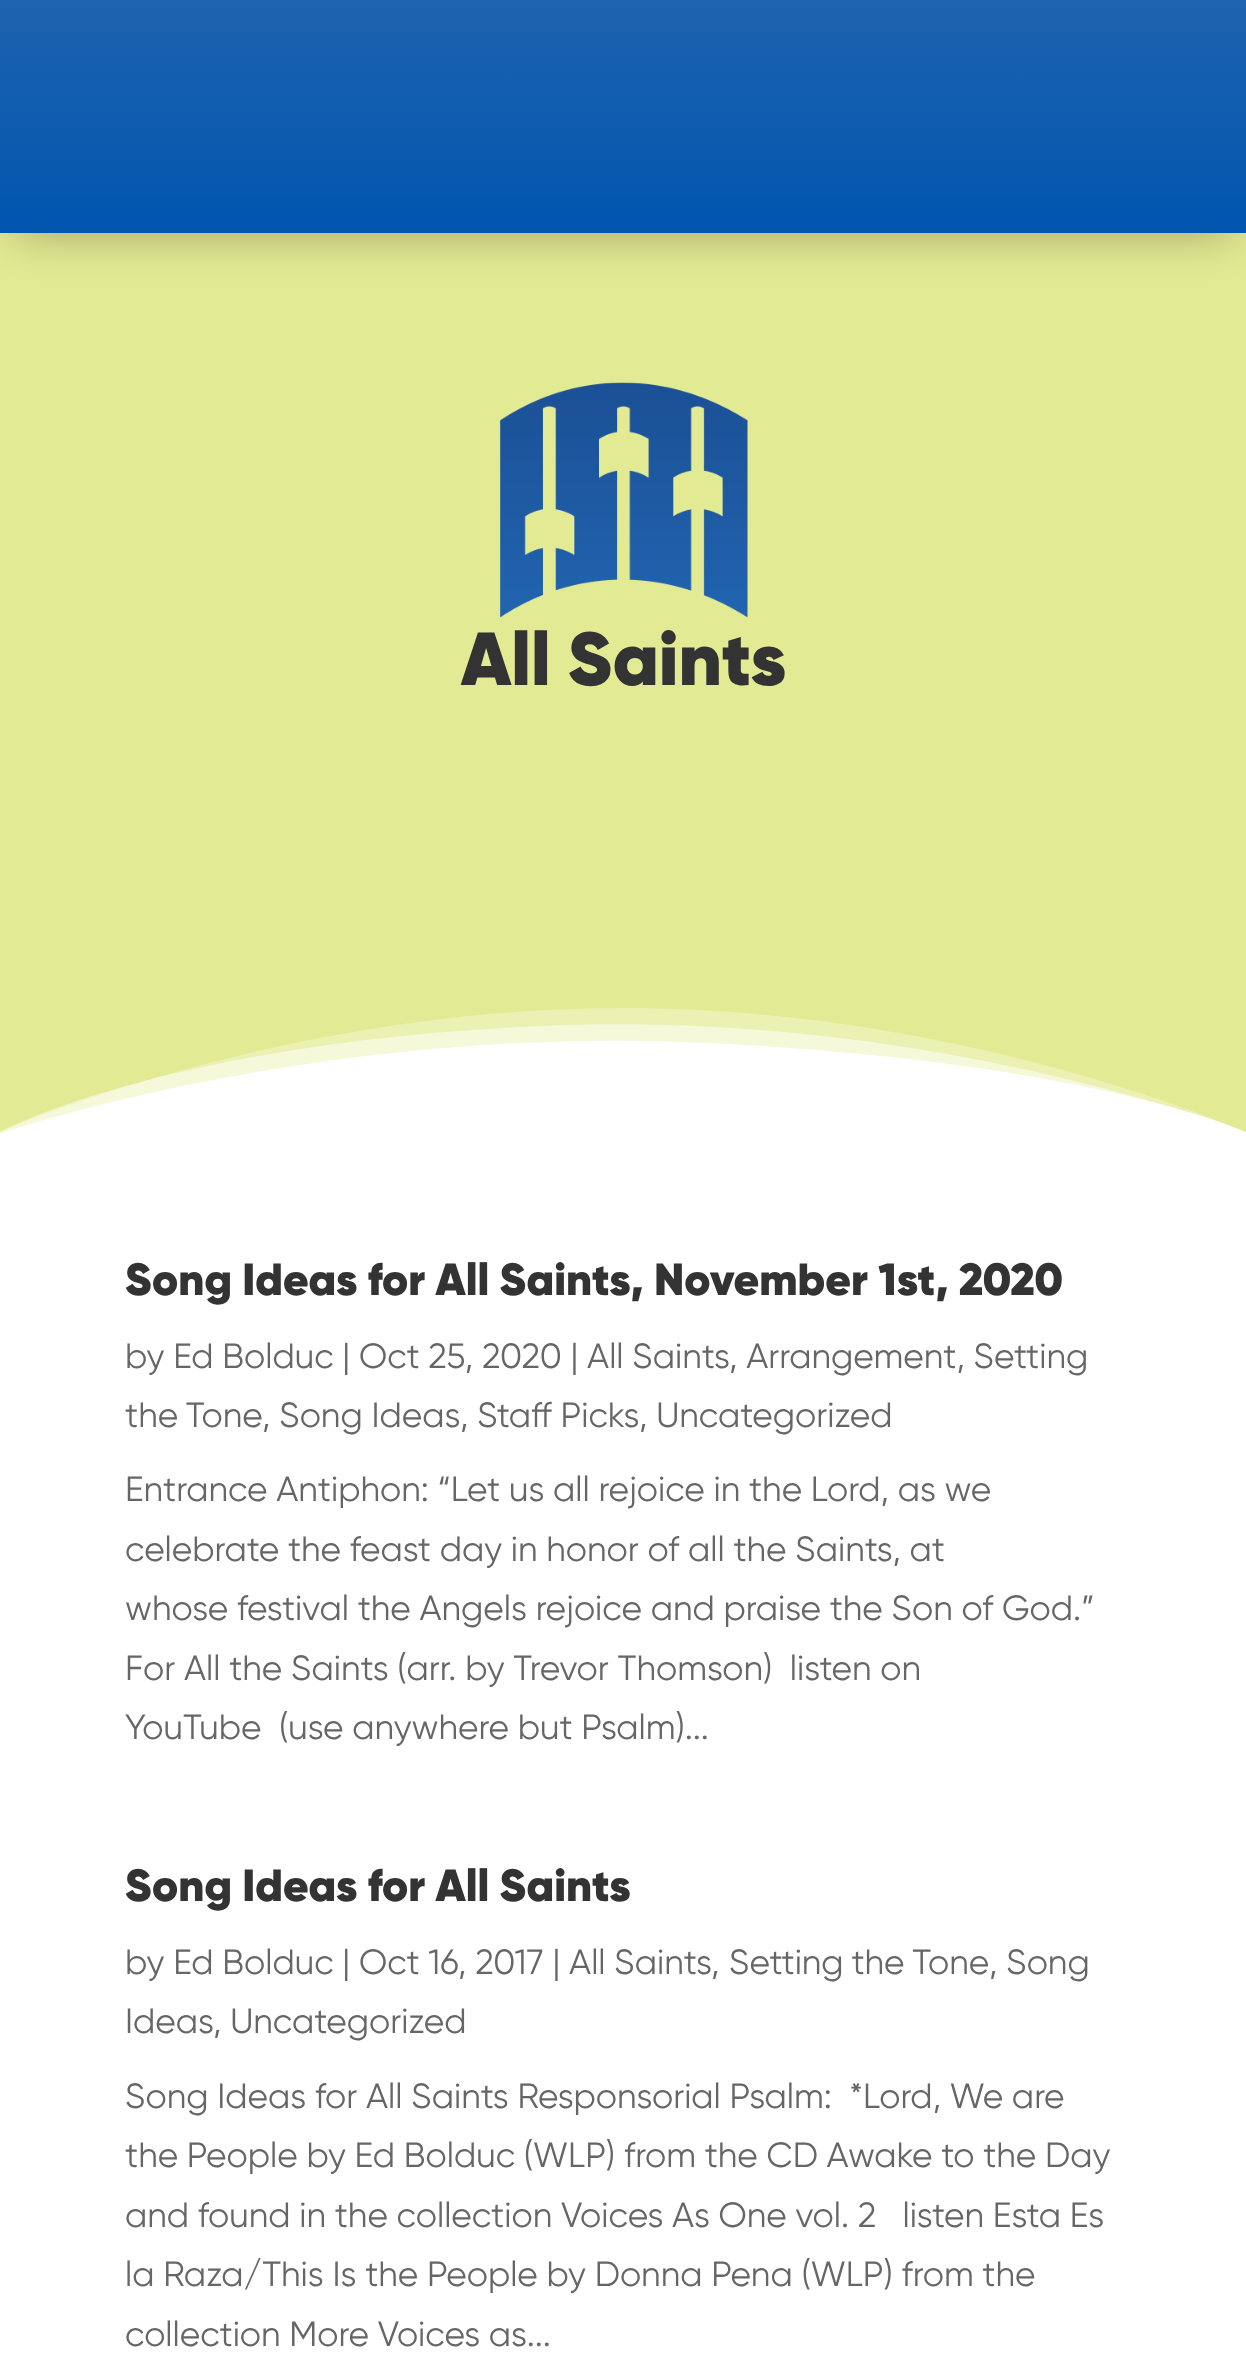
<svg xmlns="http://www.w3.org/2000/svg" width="1246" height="2356">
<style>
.a{font:900 75px Gilroy;fill:#333}
.b{font:900 45px Gilroy;fill:#333}
.c{font:35px Gilroy;fill:#666}
</style>
<defs>
<linearGradient id="g1" gradientUnits="userSpaceOnUse" x1="624" y1="0" x2="624" y2="233"><stop offset="0" stop-color="#1e63af"/><stop offset="1" stop-color="#0055af"/></linearGradient>
</defs>
<rect width="100%" height="100%" fill="#fff"/>
<path fill="#e2ea93" d="M0 233h1246v900H0z"/>
<path fill="#0000004d" filter="blur(22.5px)" d="M15 30h1218v203H15z"/>
<path fill="url(#g1)" d="M0 0h1246v233H0z"/>
<image href="1.png" x="500" y="382" width="248" height="236"/>
<path fill="#ebf0b3" d="M0 1133v-1c18-8 290-124 623-124c345 0 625 125 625 125z"/>
<path fill="#ffffff80" d="M0 1132c14-7 172-89 541-106c387-18 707 107 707 107h-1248z"/>
<path fill="#fff" d="M708 1043c390 19 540 90 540 90h-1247c0 0 317-109 707-90z"/>
<text class="a" x="461" y="685">All Saints</text>
<text class="b" x="125" y="1295">Song Ideas for All Saints, November 1st, 2020</text>
<text class="c" x="125" y="1368">by Ed Bolduc | Oct 25, 2020 | All Saints</text>
<text class="c" x="729" y="1368">, Arrangement, Setting</text>
<text class="c" x="125" y="1427" word-spacing="-1">the Tone</text>
<text class="c" x="262" y="1427">, Song Ideas</text>
<text class="c" x="460" y="1427">, Staff Picks</text>
<text class="c" x="639" y="1427">, Uncategorized</text>
<text class="c" x="125" y="1501">Entrance Antiphon: “Let us all rejoice in the Lord, as we</text>
<text class="c" x="125" y="1561">celebrate the feast day in honor of all the Saints, at</text>
<text class="c" x="125" y="1620">whose festival the Angels rejoice and praise the Son of God.”</text>
<text class="c" xml:space="preserve" x="125" y="1680">For All the Saints (arr. by Trevor Thomson)  listen on</text>
<text class="c" xml:space="preserve" x="125" y="1739">YouTube  (use anywhere but Psalm)...</text>
<text class="b" x="125" y="1901">Song Ideas for All Saints</text>
<text class="c" x="125" y="1974">by Ed Bolduc | Oct 16, 2017 | All Saints</text>
<text class="c" x="711" y="1974">,</text>
<text class="c" x="729" y="1974" word-spacing="-1">Setting the Tone</text>
<text class="c" x="989" y="1974">, Song</text>
<text class="c" x="125" y="2033">Ideas</text>
<text class="c" x="213" y="2033">, Uncategorized</text>
<text class="c" xml:space="preserve" x="125" y="2108">Song Ideas for All Saints Responsorial Psalm:  *Lord, We are</text>
<text class="c" x="125" y="2167">the People by Ed Bolduc (WLP) from the CD Awake to the Day</text>
<text class="c" xml:space="preserve" x="125" y="2227">and found in the collection Voices As One vol. 2   listen Esta Es</text>
<text class="c" x="125" y="2286">la Raza/This Is the People by Donna Pena (WLP) from the</text>
<text class="c" x="125" y="2346">collection More Voices as...</text>
</svg>
